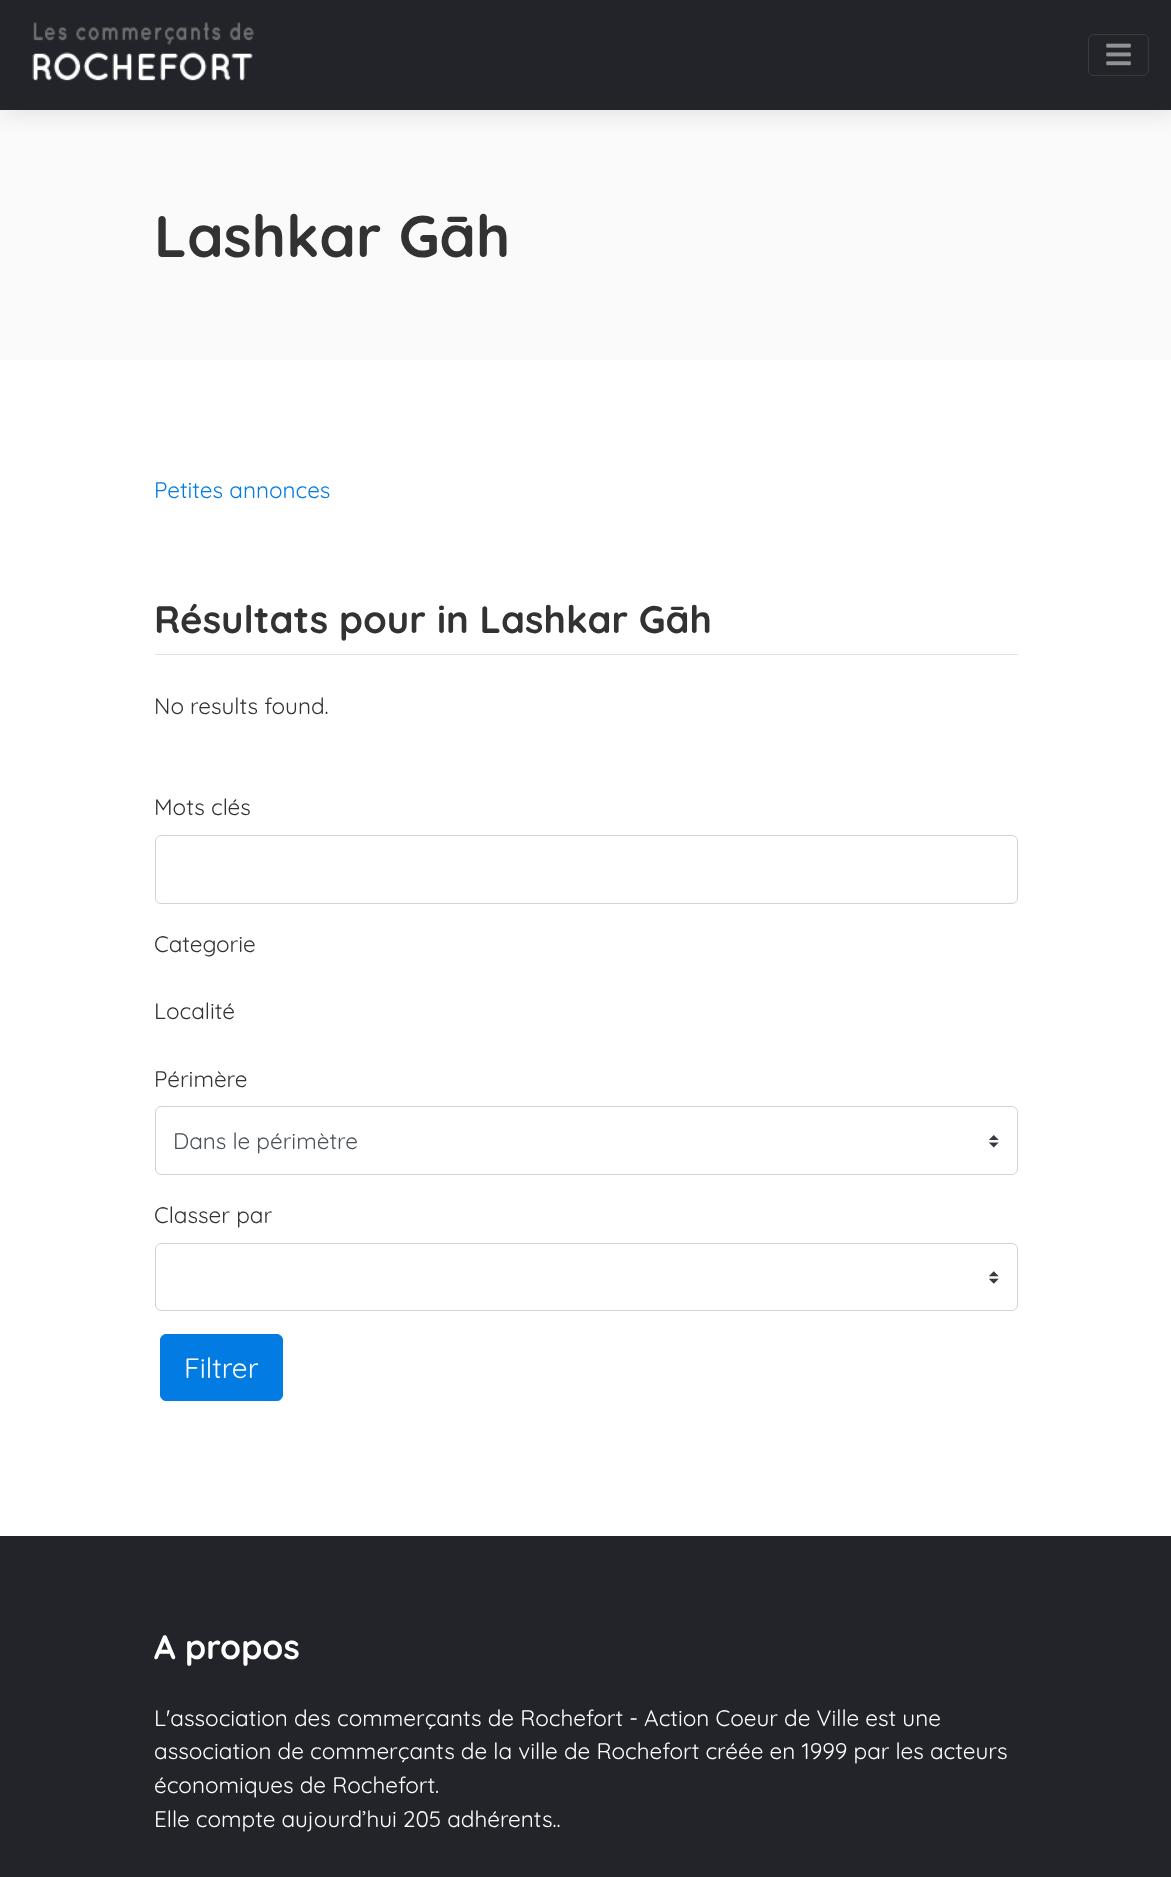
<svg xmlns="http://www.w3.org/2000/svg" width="1171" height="1877">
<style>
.a{font:bold 58.5px Quicksand;fill:#323232}
.b{font:22.5px Quicksand;fill:#027be3}
.c{font:bold 38.25px Quicksand;fill:#323232}
.d{font:22.5px Quicksand;fill:#323232}
.e{font:22.5px Quicksand;fill:#495057}
.f{font:28px Quicksand;fill:#fff}
.g{font:bold 33.75px Quicksand;fill:#fff}
.h{font:22.5px Quicksand;fill:#fff}
</style>
<rect width="100%" height="100%" fill="#fff"/>
<path fill="#fafafa" d="M0 110h1171v250H0z"/>
<path fill="#0000001a" filter="blur(12.5px)" d="M3 3h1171v110H3z"/>
<path fill="#232429" d="M0 0h1171v110H0z"/>
<image href="1.png" x="32" y="22" width="222" height="59"/>
<rect fill="none" stroke="#393a3e" x="1088.5" y="34.5" width="60" height="41" rx="5.5"/>
<image href="2.png" x="1106" y="43" width="25" height="23"/>
<path fill="#dee2e6" d="M155 654h863v1H155z"/>
<rect fill="none" stroke="#ced4da" x="155.5" y="835.5" width="862" height="68" rx="5.5"/>
<image href="3.png" x="989" y="1135" width="10" height="13"/>
<rect fill="none" stroke="#ced4da" x="155.5" y="1106.5" width="862" height="68" rx="5.5"/>
<image href="4.png" x="989" y="1271" width="10" height="13"/>
<rect fill="none" stroke="#ced4da" x="155.5" y="1243.5" width="862" height="67" rx="5.5"/>
<rect fill="#027be3" stroke="#027be3" x="160.5" y="1334.5" width="122" height="66" rx="5.5"/>
<path fill="#232429" d="M0 1536h1171v341H0z"/>
<text class="a" x="154" y="257" word-spacing="1">Lashkar Gāh</text>
<text class="b" x="154" y="498">Petites annonces</text>
<text class="c" x="154" y="633">Résultats pour</text>
<text class="c" x="437" y="633">in Lashkar Gāh</text>
<text class="d" x="154" y="714">No results found.</text>
<text class="d" x="154" y="815">Mots clés</text>
<text class="d" x="154" y="952">Categorie</text>
<text class="d" x="154" y="1019">Localité</text>
<text class="d" x="154" y="1087">Périmère</text>
<text class="e" x="173" y="1149">Dans le périmètre</text>
<text class="d" x="154" y="1223">Classer par</text>
<text class="f" x="184" y="1378">Filtrer</text>
<text class="g" x="154" y="1659">A propos</text>
<text class="h" x="154" y="1726">L'association des commerçants de Rochefort - Action Coeur de Ville est une</text>
<text class="h" x="154" y="1759">association de commerçants de la ville de Rochefort créée en 1999 par les acteurs</text>
<text class="h" x="154" y="1793">économiques de Rochefort.</text>
<text class="h" x="154" y="1827">Elle compte aujourd’hui 205 adhérents..</text>
</svg>
